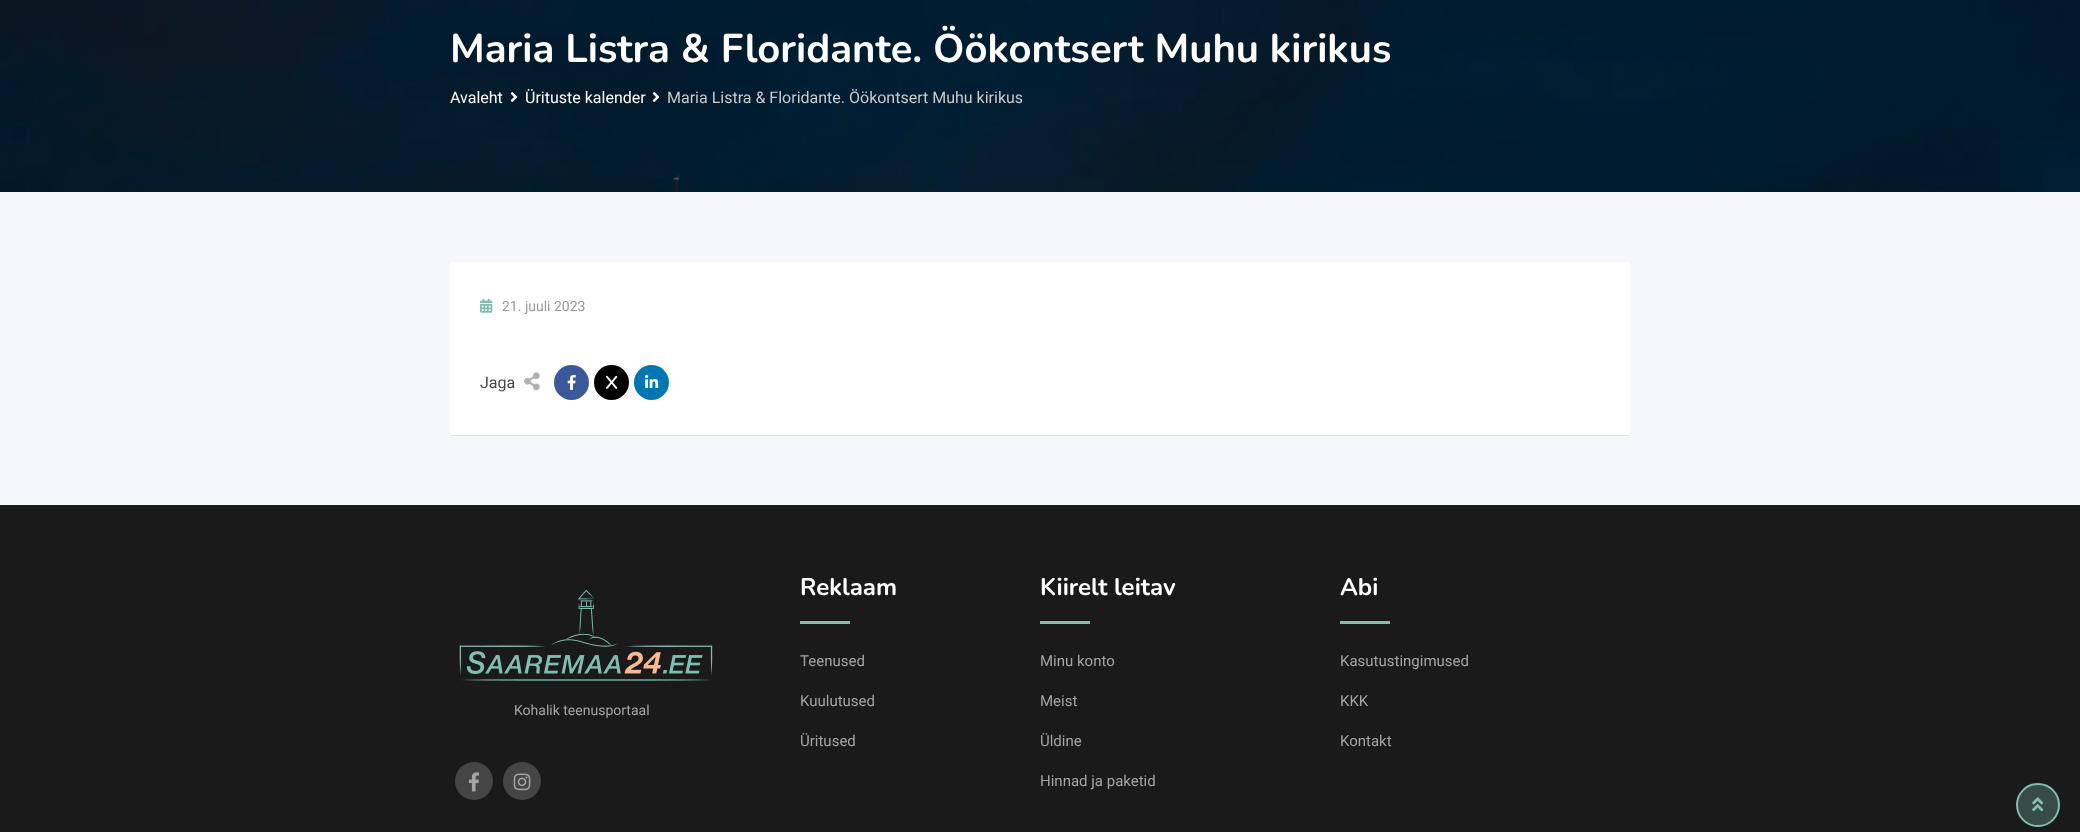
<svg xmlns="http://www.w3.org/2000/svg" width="2080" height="832">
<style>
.a{font:bold 40px Nunito;fill:#fff}
.b{font:16px Roboto;fill:#fff}
.c{font:16px Roboto;fill:#cacaca}
.d{font:14px Roboto;fill:#999}
.e{font:16px Roboto;fill:#444}
.f{font:14px Roboto;fill:#a5a5a5}
.g{font:bold 24px Nunito;fill:#fff}
.h{font:15px Roboto;fill:#a5a5a5}
</style>
<rect width="100%" height="100%" fill="#f5f7fa"/>
<image href="1.png" x="0" y="0" width="2080" height="192"/>
<image href="2.png" x="510" y="92" width="8" height="10"/>
<image href="3.png" x="652" y="92" width="8" height="10"/>
<rect fill="#0000001a" filter="blur(0.5px)" x="450" y="263" width="1180" height="173" rx="2"/>
<path fill="#fff" d="M450 262h1180v173H450z"/>
<image href="4.png" x="480" y="298" width="13" height="15"/>
<image href="5.png" x="524" y="372" width="16" height="19"/>
<circle fill="#3b5999" cx="571.5" cy="382.5" r="17.5"/>
<image href="6.png" x="567" y="374" width="9" height="16"/>
<circle fill="#000" cx="611.5" cy="382.5" r="17.5"/>
<image href="7.png" x="606" y="375" width="12" height="14"/>
<circle fill="#0077b5" cx="651.5" cy="382.5" r="17.5"/>
<image href="8.png" x="645" y="374" width="14" height="14"/>
<path fill="#1a1a1a" d="M0 505h2080v327H0z"/>
<image href="9.png" x="459" y="589" width="254" height="92"/>
<circle fill="#454545" cx="474" cy="781" r="19"/>
<image href="10.png" x="468" y="772" width="12" height="20"/>
<circle fill="#454545" cx="522" cy="781" r="19"/>
<image href="11.png" x="513" y="773" width="18" height="18"/>
<path fill="#80beaf" d="M800 621h50v3H800z"/>
<path fill="#80beaf" d="M1040 621h50v3H1040z"/>
<path fill="#80beaf" d="M1340 621h50v3H1340z"/>
<circle fill="#394b47" stroke="#80beaf" stroke-width="2" cx="2038" cy="805" r="21"/>
<image href="12.png" x="2032" y="797" width="12" height="15"/>
<text class="a" x="450" y="62">Maria Listra &amp; Floridante. Öökontsert Muhu kirikus</text>
<text class="b" x="450" y="103">Avaleht</text>
<text class="b" x="525" y="103">Ürituste kalender</text>
<text class="c" x="667" y="103">Maria Listra &amp; Floridante. Öökontsert Muhu kirikus</text>
<text class="d" x="502" y="311">21. juuli 2023</text>
<text class="e" x="480" y="388">Jaga</text>
<text class="f" x="514" y="715">Kohalik teenusportaal</text>
<text class="g" x="800" y="595">Reklaam</text>
<text class="h" x="800" y="666">Teenused</text>
<text class="h" x="800" y="706">Kuulutused</text>
<text class="h" x="800" y="746">Üritused</text>
<text class="g" x="1040" y="595">Kiirelt leitav</text>
<text class="h" x="1040" y="666">Minu konto</text>
<text class="h" x="1040" y="706">Meist</text>
<text class="h" x="1040" y="746">Üldine</text>
<text class="h" x="1040" y="786">Hinnad ja paketid</text>
<text class="g" x="1340" y="595">Abi</text>
<text class="h" x="1340" y="666">Kasutustingimused</text>
<text class="h" x="1340" y="706">KKK</text>
<text class="h" x="1340" y="746">Kontakt</text>
</svg>
